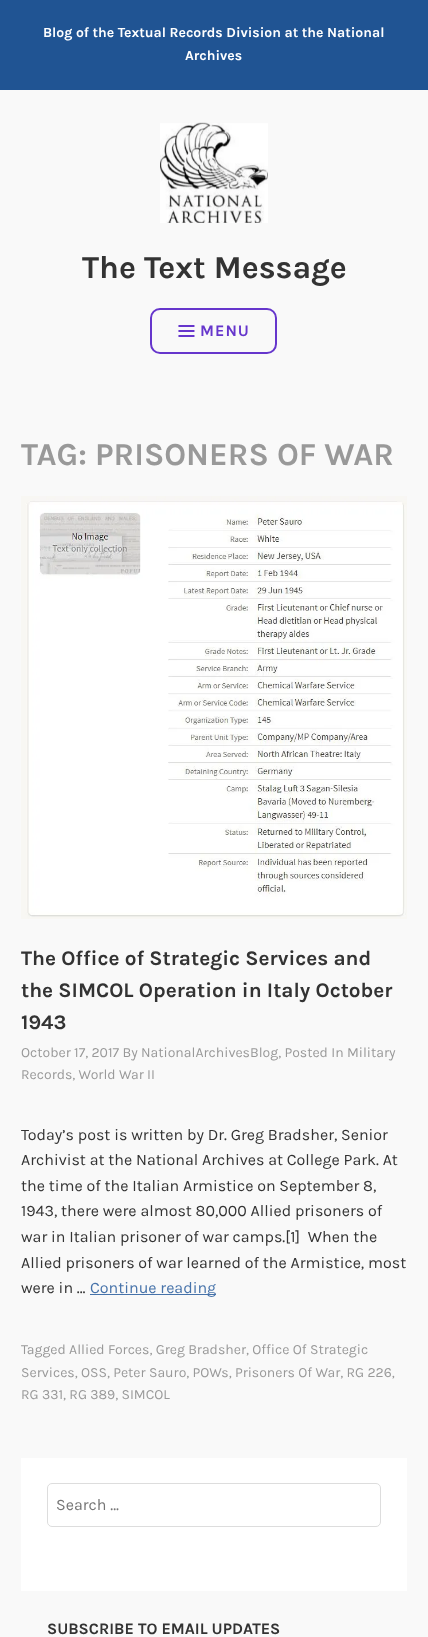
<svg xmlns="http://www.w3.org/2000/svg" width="428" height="1637">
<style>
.a{font:bold 14px Karla;fill:#fff}
.b{font:bold 32px Karla;fill:#333}
.c{font:bold 16px Karla;letter-spacing:1px;fill:#6636cc}
.d{font:bold 32px Karla;fill:#999}
.e{font:bold 20.75px Karla;fill:#333}
.f{font:14px Karla;fill:#999}
.g{font:16px Karla;fill:#333}
.h{font:16px Karla;fill:#4773aa}
.i{font:16px Karla;fill:#757575}
.j{font:bold 16px Karla;fill:#333}
</style>
<rect width="100%" height="100%" fill="#f9f9f9"/>
<path fill="#205493" d="M0 0h428v90H0z"/>
<image href="1.png" x="160" y="122" width="108" height="101"/>
<rect fill="none" stroke="#6636cc" stroke-width="2" x="151" y="309" width="125" height="44" rx="9"/>
<image href="2.png" x="178" y="325" width="17" height="12"/>
<image href="3.png" x="21" y="496" width="386" height="423"/>
<path fill="#4773aa" d="M90 1294h126v1H90z"/>
<path fill="#fff" d="M21 1458h386v133H21z"/>
<rect fill="none" stroke="#ddd" x="47.5" y="1483.5" width="333" height="43" rx="4.5"/>
<text class="a" x="43" y="37">Blog of the Textual Records Division at the National</text>
<text class="a" x="185" y="60">Archives</text>
<text class="b" x="82" y="278">The Text Message</text>
<text class="c" x="200" y="336">MENU</text>
<text class="d" x="21" y="465">TAG: PRISONERS OF WAR</text>
<text class="e" x="21" y="965">The Office of Strategic Services and</text>
<text class="e" x="21" y="997">the SIMCOL Operation in Italy October</text>
<text class="e" x="21" y="1029">1943</text>
<text class="f" x="21" y="1057">October 17, 2017 By NationalArchivesBlog, Posted In Military</text>
<text class="f" x="21" y="1079">Records, World War II</text>
<text class="g" x="21" y="1140">Today’s post is written by Dr. Greg Bradsher, Senior</text>
<text class="g" x="21" y="1165">Archivist at the National Archives at College Park. At</text>
<text class="g" x="21" y="1191">the time of the Italian Armistice on September 8,</text>
<text class="g" x="21" y="1216">1943, there were almost 80,000 Allied prisoners of</text>
<text class="g" xml:space="preserve" x="21" y="1242">war in Italian prisoner of war camps.[1]  When the</text>
<text class="g" x="21" y="1268">Allied prisoners of war learned of the Armistice, most</text>
<text class="g" x="21" y="1293">were in …</text>
<text class="h" x="90" y="1293">Continue reading</text>
<text class="f" x="21" y="1354">Tagged Allied Forces, Greg Bradsher, Office Of Strategic</text>
<text class="f" x="21" y="1377">Services, OSS, Peter Sauro, POWs, Prisoners Of War, RG 226,</text>
<text class="f" x="21" y="1399">RG 331, RG 389, SIMCOL</text>
<text class="i" x="56" y="1510">Search …</text>
<text class="j" x="47" y="1634">SUBSCRIBE TO EMAIL UPDATES</text>
</svg>
